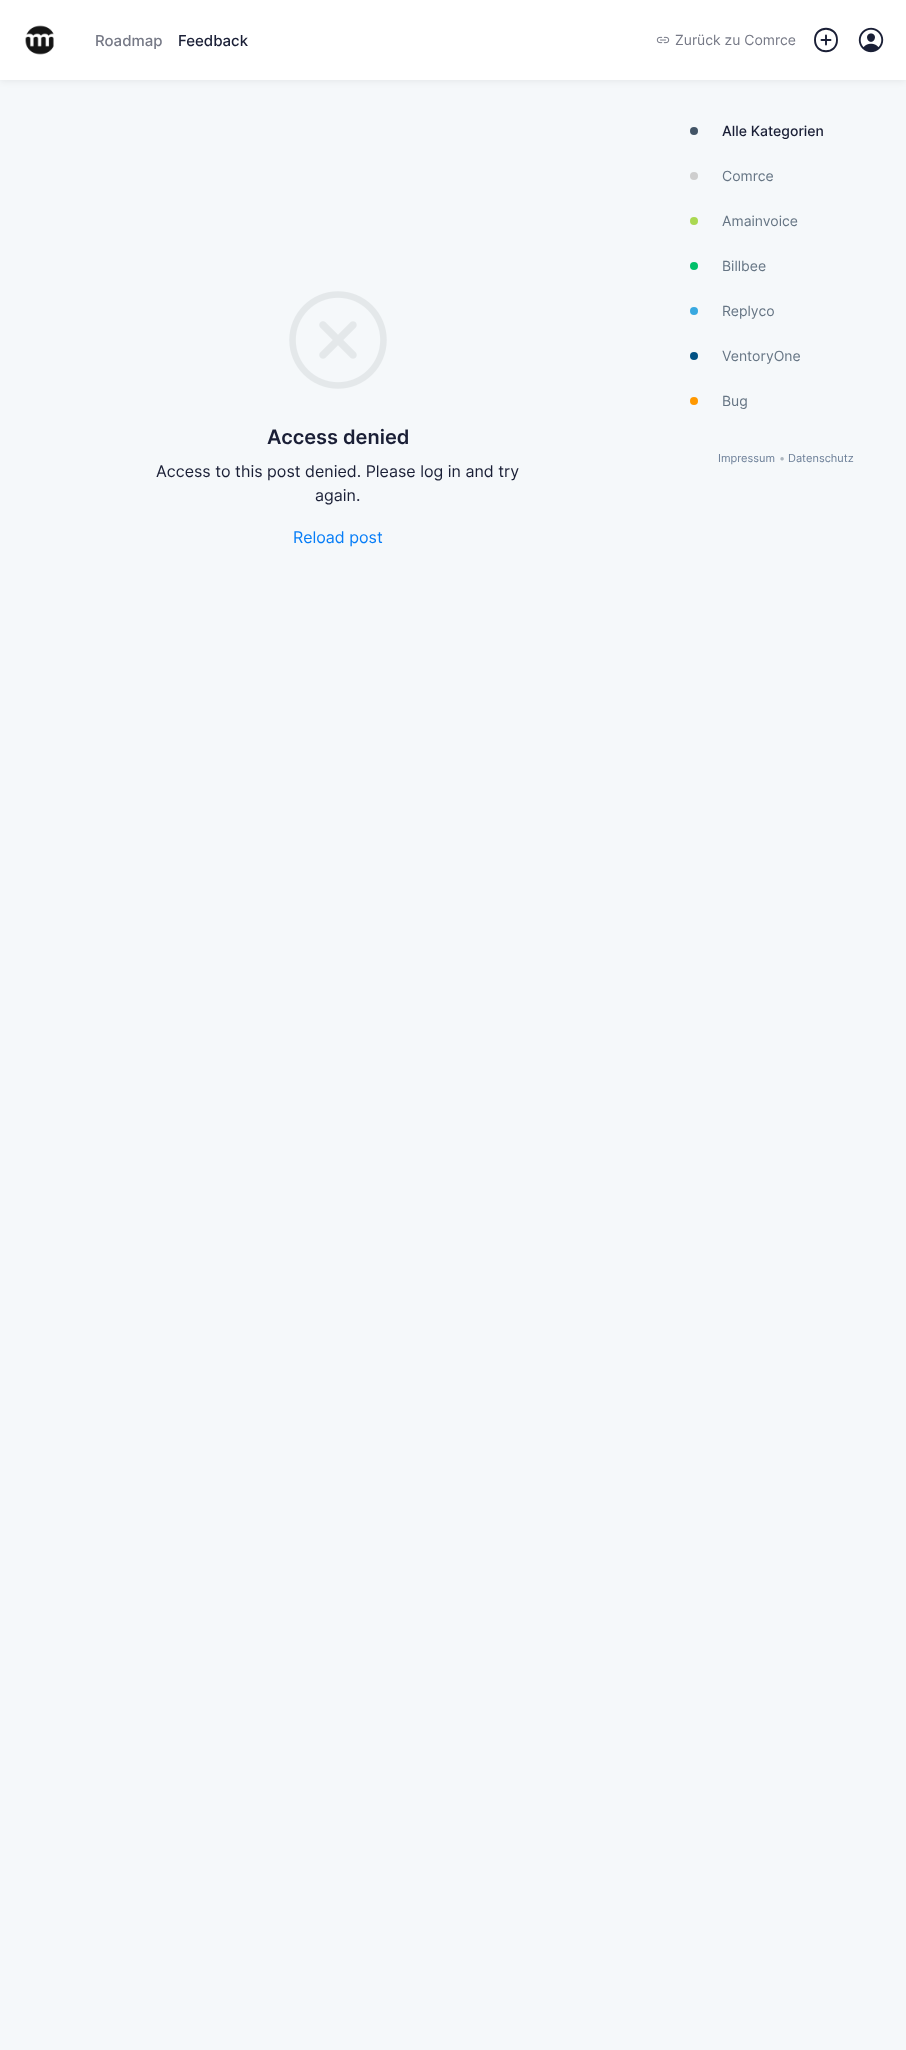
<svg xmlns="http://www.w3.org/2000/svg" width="906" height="2050">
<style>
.a{font:500 15px Inter;fill:#767986}
.b{font:500 15px Inter;fill:#1a1f36}
.c{font:14px Inter;fill:#767986}
.d{font:500 14px Inter;fill:#1a1f36}
.e{font:14px Inter;fill:#667584}
.f{font:11px Inter;fill:#6b7e97}
.g{font:11px Inter;fill:#adb6bf}
.h{font:600 20px Inter;fill:#1a1f36}
.i{font:16px Inter;fill:#1a1f36}
.j{font:16px Inter;fill:#067df7}
</style>
<rect width="100%" height="100%" fill="#f5f8fa"/>
<path fill="#00000012" filter="blur(3.5px)" d="M0 1h906v80H0z"/>
<path fill="#fff" d="M0 0h906v80H0z"/>
<image href="1.png" x="25" y="25" width="29" height="30"/>
<image href="2.png" x="656" y="36" width="14" height="8"/>
<path fill="none" stroke="#1a1f36" stroke-width="1.9" d="M837 40c0-15-22-15-22 0c0 15 22 15 22 0z"/>
<path fill="none" stroke="#1a1f36" stroke-width="1.9" stroke-linecap="round" stroke-linejoin="round" d="M826 35.5v9m4.5-4.5h-9"/>
<image href="3.png" x="858" y="27" width="26" height="26"/>
<circle fill="#425466" cx="694" cy="131" r="4"/>
<circle fill="#cecece" cx="694" cy="176" r="4"/>
<circle fill="#aad851" cx="694" cy="221" r="4"/>
<circle fill="#00c069" cx="694" cy="266" r="4"/>
<circle fill="#38a8e0" cx="694" cy="311" r="4"/>
<circle fill="#015284" cx="694" cy="356" r="4"/>
<circle fill="#ff9800" cx="694" cy="401" r="4"/>
<image href="4.png" x="289" y="291" width="98" height="98"/>
<text class="a" x="95" y="46">Roadmap</text>
<text class="b" x="178" y="46">Feedback</text>
<text class="c" x="675" y="45">Zurück zu Comrce</text>
<text class="d" x="722" y="136">Alle Kategorien</text>
<text class="e" x="722" y="181">Comrce</text>
<text class="e" x="722" y="226">Amainvoice</text>
<text class="e" x="722" y="271">Billbee</text>
<text class="e" x="722" y="316">Replyco</text>
<text class="e" x="722" y="361">VentoryOne</text>
<text class="e" x="722" y="406">Bug</text>
<text class="f" x="718" y="462">Impressum</text>
<text class="g" x="779" y="462">•</text>
<text class="f" x="788" y="462">Datenschutz</text>
<text class="h" x="267" y="444">Access denied</text>
<text class="i" x="156" y="477">Access to this post denied. Please log in and try</text>
<text class="i" x="315" y="501">again.</text>
<text class="j" x="293" y="543">Reload post</text>
</svg>
